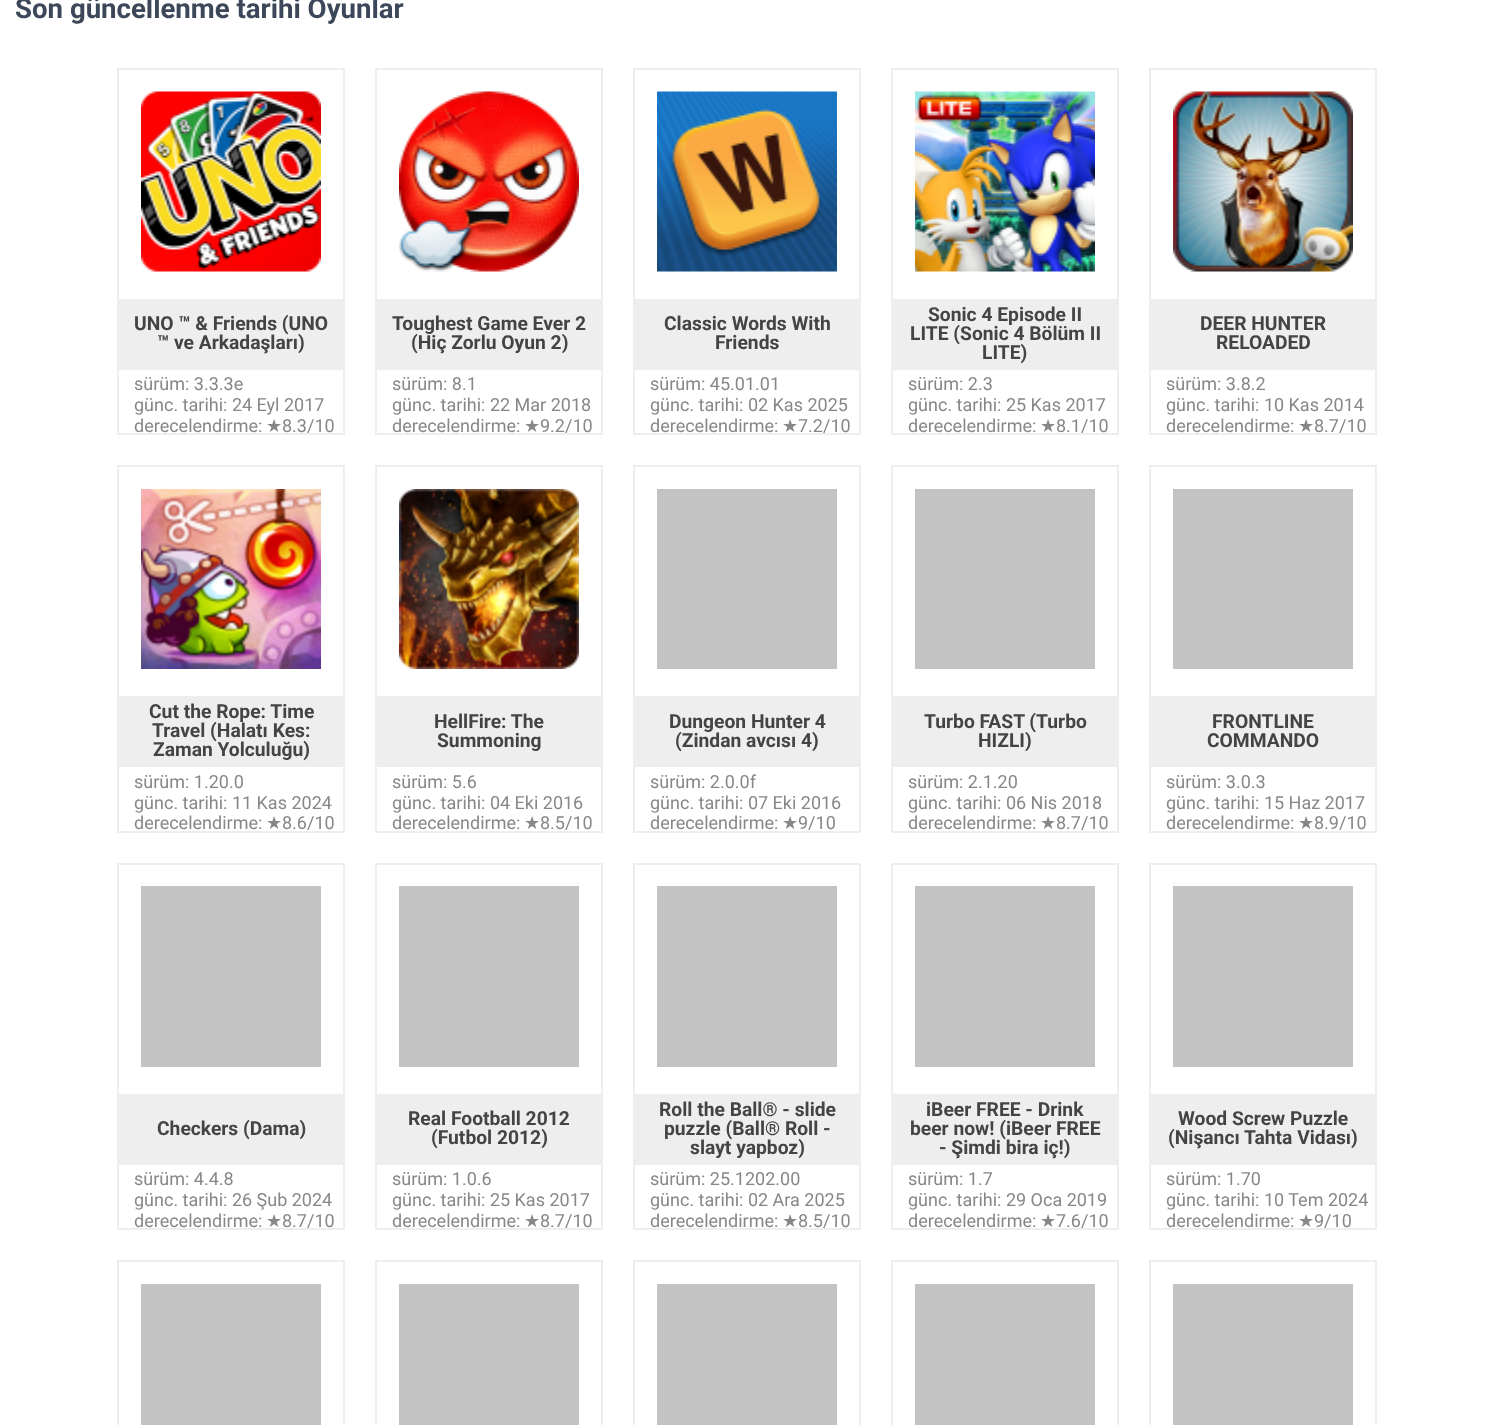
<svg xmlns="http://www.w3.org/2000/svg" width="1494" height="1425">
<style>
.a{font:bold 27.6px Roboto;fill:#3c4859}
.b{font:bold 19.25px Roboto;fill:#444}
.c{font:18px Roboto;fill:#878787}
.d{font:18px DejaVu Sans;fill:#878787}
</style>
<rect width="100%" height="100%" fill="#fff"/>
<path fill="none" stroke="#eee" stroke-width="2" d="M118 69h226v365H118z"/>
<image href="1.png" x="141" y="91" width="180" height="181"/>
<path fill="#eee" d="M119 299h224v69H119z"/>
<path fill="#eee" d="M119 368h225v2H119z"/>
<path fill="none" stroke="#eee" stroke-width="2" d="M376 69h226v365H376z"/>
<image href="2.png" x="399" y="91" width="180" height="181"/>
<path fill="#eee" d="M377 299h224v69H377z"/>
<path fill="#eee" d="M377 368h225v2H377z"/>
<path fill="none" stroke="#eee" stroke-width="2" d="M634 69h226v365H634z"/>
<image href="3.png" x="657" y="91" width="180" height="181"/>
<path fill="#eee" d="M635 299h224v69H635z"/>
<path fill="#eee" d="M635 368h225v2H635z"/>
<path fill="none" stroke="#eee" stroke-width="2" d="M892 69h226v365H892z"/>
<image href="4.png" x="915" y="91" width="180" height="181"/>
<path fill="#eee" d="M893 299h224v69H893z"/>
<path fill="#eee" d="M893 368h225v2H893z"/>
<path fill="none" stroke="#eee" stroke-width="2" d="M1150 69h226v365H1150z"/>
<image href="5.png" x="1173" y="91" width="180" height="181"/>
<path fill="#eee" d="M1151 299h224v69H1151z"/>
<path fill="#eee" d="M1151 368h225v2H1151z"/>
<path fill="none" stroke="#eee" stroke-width="2" d="M118 466h226v366H118z"/>
<image href="6.png" x="141" y="489" width="180" height="180"/>
<path fill="#eee" d="M119 696h224v71H119z"/>
<path fill="none" stroke="#eee" stroke-width="2" d="M376 466h226v366H376z"/>
<image href="7.png" x="399" y="489" width="180" height="180"/>
<path fill="#eee" d="M377 696h224v71H377z"/>
<path fill="none" stroke="#eee" stroke-width="2" d="M634 466h226v366H634z"/>
<path fill="#c3c3c3" d="M657 489h180v180H657z"/>
<path fill="#eee" d="M635 696h224v71H635z"/>
<path fill="none" stroke="#eee" stroke-width="2" d="M892 466h226v366H892z"/>
<path fill="#c3c3c3" d="M915 489h180v180H915z"/>
<path fill="#eee" d="M893 696h224v71H893z"/>
<path fill="none" stroke="#eee" stroke-width="2" d="M1150 466h226v366H1150z"/>
<path fill="#c3c3c3" d="M1173 489h180v180H1173z"/>
<path fill="#eee" d="M1151 696h224v71H1151z"/>
<path fill="none" stroke="#eee" stroke-width="2" d="M118 864h226v365H118z"/>
<path fill="#c3c3c3" d="M141 886h180v181H141z"/>
<path fill="#eee" d="M119 1094h224v69H119z"/>
<path fill="#eee" d="M119 1163h225v2H119z"/>
<path fill="none" stroke="#eee" stroke-width="2" d="M376 864h226v365H376z"/>
<path fill="#c3c3c3" d="M399 886h180v181H399z"/>
<path fill="#eee" d="M377 1094h224v69H377z"/>
<path fill="#eee" d="M377 1163h225v2H377z"/>
<path fill="none" stroke="#eee" stroke-width="2" d="M634 864h226v365H634z"/>
<path fill="#c3c3c3" d="M657 886h180v181H657z"/>
<path fill="#eee" d="M635 1094h224v69H635z"/>
<path fill="#eee" d="M635 1163h225v2H635z"/>
<path fill="none" stroke="#eee" stroke-width="2" d="M892 864h226v365H892z"/>
<path fill="#c3c3c3" d="M915 886h180v181H915z"/>
<path fill="#eee" d="M893 1094h224v69H893z"/>
<path fill="#eee" d="M893 1163h225v2H893z"/>
<path fill="none" stroke="#eee" stroke-width="2" d="M1150 864h226v365H1150z"/>
<path fill="#c3c3c3" d="M1173 886h180v181H1173z"/>
<path fill="#eee" d="M1151 1094h224v69H1151z"/>
<path fill="#eee" d="M1151 1163h225v2H1151z"/>
<path fill="none" stroke="#eee" stroke-width="2" d="M118 1261h226v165H118z"/>
<path fill="#c3c3c3" d="M141 1284h180v141H141z"/>
<path fill="none" stroke="#eee" stroke-width="2" d="M376 1261h226v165H376z"/>
<path fill="#c3c3c3" d="M399 1284h180v141H399z"/>
<path fill="none" stroke="#eee" stroke-width="2" d="M634 1261h226v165H634z"/>
<path fill="#c3c3c3" d="M657 1284h180v141H657z"/>
<path fill="none" stroke="#eee" stroke-width="2" d="M892 1261h226v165H892z"/>
<path fill="#c3c3c3" d="M915 1284h180v141H915z"/>
<path fill="none" stroke="#eee" stroke-width="2" d="M1150 1261h226v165H1150z"/>
<path fill="#c3c3c3" d="M1173 1284h180v141H1173z"/>
<text class="a" x="15" y="18">Son güncellenme tarihi Oyunlar</text>
<text class="b" x="134" y="330">UNO ™ &amp; Friends (UNO</text>
<text class="b" x="157" y="349">™ ve Arkadaşları)</text>
<text class="c" x="134" y="390">sürüm: 3.3.3e</text>
<text class="c" x="134" y="411">günc. tarihi: 24 Eyl 2017</text>
<text class="c" x="134" y="432">derecelendirme:</text>
<text class="d" x="266" y="432">★</text>
<text class="c" x="282" y="432">8.3/10</text>
<text class="b" x="392" y="330">Toughest Game Ever 2</text>
<text class="b" x="411" y="349">(Hiç Zorlu Oyun 2)</text>
<text class="c" x="392" y="390">sürüm: 8.1</text>
<text class="c" x="392" y="411">günc. tarihi: 22 Mar 2018</text>
<text class="c" x="392" y="432">derecelendirme:</text>
<text class="d" x="524" y="432">★</text>
<text class="c" x="540" y="432">9.2/10</text>
<text class="b" x="664" y="330">Classic Words With</text>
<text class="b" x="715" y="349">Friends</text>
<text class="c" x="650" y="390">sürüm: 45.01.01</text>
<text class="c" x="650" y="411">günc. tarihi: 02 Kas 2025</text>
<text class="c" x="650" y="432">derecelendirme:</text>
<text class="d" x="782" y="432">★</text>
<text class="c" x="798" y="432">7.2/10</text>
<text class="b" x="928" y="321">Sonic 4 Episode II</text>
<text class="b" x="910" y="340">LITE (Sonic 4 Bölüm II</text>
<text class="b" x="982" y="359">LITE)</text>
<text class="c" x="908" y="390">sürüm: 2.3</text>
<text class="c" x="908" y="411">günc. tarihi: 25 Kas 2017</text>
<text class="c" x="908" y="432">derecelendirme:</text>
<text class="d" x="1040" y="432">★</text>
<text class="c" x="1056" y="432">8.1/10</text>
<text class="b" x="1200" y="330">DEER HUNTER</text>
<text class="b" x="1216" y="349">RELOADED</text>
<text class="c" x="1166" y="390">sürüm: 3.8.2</text>
<text class="c" x="1166" y="411">günc. tarihi: 10 Kas 2014</text>
<text class="c" x="1166" y="432">derecelendirme:</text>
<text class="d" x="1298" y="432">★</text>
<text class="c" x="1314" y="432">8.7/10</text>
<text class="b" x="149" y="718">Cut the Rope: Time</text>
<text class="b" x="152" y="737">Travel (Halatı Kes:</text>
<text class="b" x="153" y="756">Zaman Yolculuğu)</text>
<text class="c" x="134" y="788">sürüm: 1.20.0</text>
<text class="c" x="134" y="809">günc. tarihi: 11 Kas 2024</text>
<text class="c" x="134" y="829">derecelendirme:</text>
<text class="d" x="266" y="829">★</text>
<text class="c" x="282" y="829">8.6/10</text>
<text class="b" x="434" y="728">HellFire: The</text>
<text class="b" x="437" y="747">Summoning</text>
<text class="c" x="392" y="788">sürüm: 5.6</text>
<text class="c" x="392" y="809">günc. tarihi: 04 Eki 2016</text>
<text class="c" x="392" y="829">derecelendirme:</text>
<text class="d" x="524" y="829">★</text>
<text class="c" x="540" y="829">8.5/10</text>
<text class="b" x="669" y="728">Dungeon Hunter 4</text>
<text class="b" x="675" y="747">(Zindan avcısı 4)</text>
<text class="c" x="650" y="788">sürüm: 2.0.0f</text>
<text class="c" x="650" y="809">günc. tarihi: 07 Eki 2016</text>
<text class="c" x="650" y="829">derecelendirme:</text>
<text class="d" x="782" y="829">★</text>
<text class="c" x="798" y="829">9/10</text>
<text class="b" x="924" y="728">Turbo FAST (Turbo</text>
<text class="b" x="978" y="747">HIZLI)</text>
<text class="c" x="908" y="788">sürüm: 2.1.20</text>
<text class="c" x="908" y="809">günc. tarihi: 06 Nis 2018</text>
<text class="c" x="908" y="829">derecelendirme:</text>
<text class="d" x="1040" y="829">★</text>
<text class="c" x="1056" y="829">8.7/10</text>
<text class="b" x="1212" y="728">FRONTLINE</text>
<text class="b" x="1207" y="747">COMMANDO</text>
<text class="c" x="1166" y="788">sürüm: 3.0.3</text>
<text class="c" x="1166" y="809">günc. tarihi: 15 Haz 2017</text>
<text class="c" x="1166" y="829">derecelendirme:</text>
<text class="d" x="1298" y="829">★</text>
<text class="c" x="1314" y="829">8.9/10</text>
<text class="b" x="157" y="1135">Checkers (Dama)</text>
<text class="c" x="134" y="1185">sürüm: 4.4.8</text>
<text class="c" x="134" y="1206">günc. tarihi: 26 Şub 2024</text>
<text class="c" x="134" y="1227">derecelendirme:</text>
<text class="d" x="266" y="1227">★</text>
<text class="c" x="282" y="1227">8.7/10</text>
<text class="b" x="408" y="1125">Real Football 2012</text>
<text class="b" x="431" y="1144">(Futbol 2012)</text>
<text class="c" x="392" y="1185">sürüm: 1.0.6</text>
<text class="c" x="392" y="1206">günc. tarihi: 25 Kas 2017</text>
<text class="c" x="392" y="1227">derecelendirme:</text>
<text class="d" x="524" y="1227">★</text>
<text class="c" x="540" y="1227">8.7/10</text>
<text class="b" x="659" y="1116">Roll the Ball® - slide</text>
<text class="b" x="664" y="1135">puzzle (Ball® Roll -</text>
<text class="b" x="690" y="1154">slayt yapboz)</text>
<text class="c" x="650" y="1185">sürüm: 25.1202.00</text>
<text class="c" x="650" y="1206">günc. tarihi: 02 Ara 2025</text>
<text class="c" x="650" y="1227">derecelendirme:</text>
<text class="d" x="782" y="1227">★</text>
<text class="c" x="798" y="1227">8.5/10</text>
<text class="b" x="926" y="1116">iBeer FREE - Drink</text>
<text class="b" x="910" y="1135">beer now! (iBeer FREE</text>
<text class="b" x="939" y="1154">- Şimdi bira iç!)</text>
<text class="c" x="908" y="1185">sürüm: 1.7</text>
<text class="c" x="908" y="1206">günc. tarihi: 29 Oca 2019</text>
<text class="c" x="908" y="1227">derecelendirme:</text>
<text class="d" x="1040" y="1227">★</text>
<text class="c" x="1056" y="1227">7.6/10</text>
<text class="b" x="1178" y="1125">Wood Screw Puzzle</text>
<text class="b" x="1168" y="1144">(Nişancı Tahta Vidası)</text>
<text class="c" x="1166" y="1185">sürüm: 1.70</text>
<text class="c" x="1166" y="1206">günc. tarihi: 10 Tem 2024</text>
<text class="c" x="1166" y="1227">derecelendirme:</text>
<text class="d" x="1298" y="1227">★</text>
<text class="c" x="1314" y="1227">9/10</text>
</svg>
